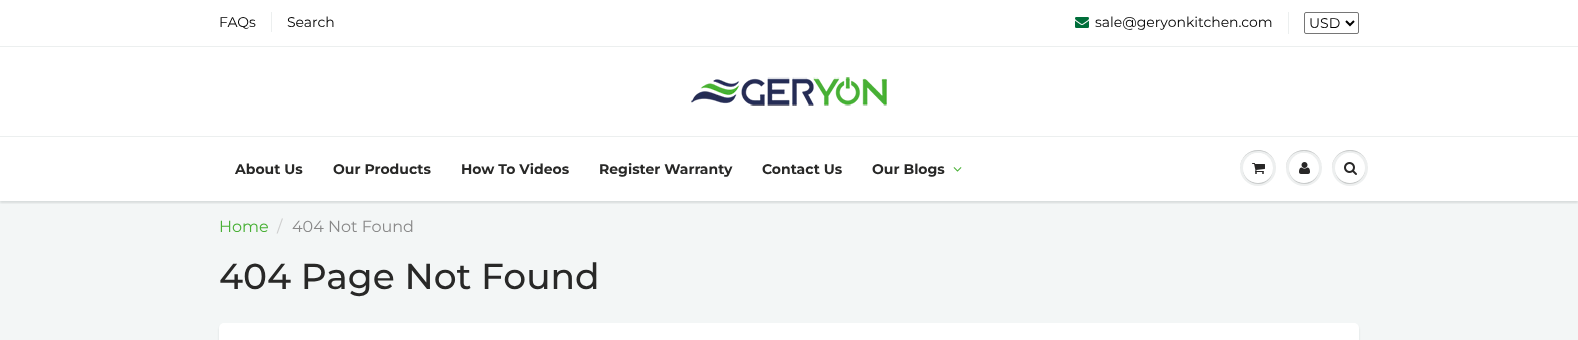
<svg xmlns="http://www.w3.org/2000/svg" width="1578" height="340">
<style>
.a{font:14px Montserrat;fill:#000}
.b{font:bold 14px Montserrat;fill:#282827}
.c{font:16px Montserrat;fill:#48b035}
.d{font:16px Montserrat;fill:#ccc}
.e{font:16px Montserrat;fill:#898989}
.f{font:500 36px Montserrat;fill:#282827}
</style>
<defs>
<clipPath id="clip1"><path d="M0 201h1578v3H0z"/></clipPath>
</defs>
<rect width="100%" height="100%" fill="#fff"/>
<path fill="#ecefef" d="M271 12h1v20H271z"/>
<image href="1.png" x="1075" y="17" width="14" height="11"/>
<path fill="#ecefef" d="M1288 12h1v22H1288z"/>
<rect fill="none" stroke="#767676" x="1304.5" y="12.5" width="54" height="21" rx="1.5"/>
<path fill="none" stroke="#000" stroke-width="2" d="M1346 21l4 4l4-4"/>
<path fill="#ecefef" d="M0 46h1578v1H0z"/>
<image href="2.png" x="691" y="77" width="196" height="29"/>
<path fill="#f3f6f6" d="M0 201h1578v139H0z"/>
<g clip-path="url(#clip1)">
<path fill="#0b191c1f" filter="blur(1px)" d="M0 138h1578v65H0z"/>
</g>
<path fill="#ecefef" d="M0 136h1578v1H0z"/>
<image href="3.png" x="953" y="167" width="9" height="5"/>
<circle fill="#edefef" cx="1258" cy="168" r="18"/>
<path fill="#c9cbcb" d="M1258 151c12 0 18 8.5 18 17.5c0-3.5-1-7.5-3-10.5c-10-15-33.5-7.5-33 10.5c0-9 6-17.5 18-17.5z"/>
<path fill="#c9cbcb" d="M1273 168.5c-.5 19-29.5 19-30 0c-.5 15 19 21.5 27.5 9c1.5-2.5 2.5-6 2.5-9z"/>
<circle fill="#fff" cx="1258" cy="168" r="15"/>
<path fill="#fff" d="M1258 154c10 0 15 7 15 14.5c0-3-1-6.5-2.5-9c-8.5-12.5-28-6-27.5 9c0-7.5 5-14.5 15-14.5z"/>
<image href="4.png" x="1252" y="163" width="13" height="11"/>
<circle fill="#edefef" cx="1304" cy="168" r="18"/>
<path fill="#c9cbcb" d="M1304 151c12 0 18 8.5 18 17.5c0-3.5-1-7.5-3-10.5c-10-15-33.5-7.5-33 10.5c0-9 6-17.5 18-17.5z"/>
<path fill="#c9cbcb" d="M1319 168.5c-.5 19-29.5 19-30 0c-.5 15 19 21.5 27.5 9c1.5-2.5 2.5-6 2.5-9z"/>
<circle fill="#fff" cx="1304" cy="168" r="15"/>
<path fill="#fff" d="M1304 154c10 0 15 7 15 14.5c0-3-1-6.5-2.5-9c-8.5-12.5-28-6-27.5 9c0-7.5 5-14.5 15-14.5z"/>
<image href="5.png" x="1299" y="162" width="11" height="12"/>
<circle fill="#edefef" cx="1350" cy="168" r="18"/>
<path fill="#c9cbcb" d="M1350 151c12 0 18 8.5 18 17.5c0-3.5-1-7.5-3-10.5c-10-15-33.5-7.5-33 10.5c0-9 6-17.5 18-17.5z"/>
<path fill="#c9cbcb" d="M1365 168.5c-.5 19-29.5 19-30 0c0 3 1 6.5 2.5 9c8.5 12.5 28 6 27.5-9z"/>
<circle fill="#fff" cx="1350" cy="168" r="15"/>
<path fill="#fff" d="M1350 154c10 0 15 7 15 14.5c0-3-1-6.5-2.5-9c-8.5-12.5-28-6-27.5 9c0-7.5 5-14.5 15-14.5z"/>
<image href="6.png" x="1344" y="162" width="13" height="13"/>
<rect fill="#0b191c1a" filter="blur(1px)" x="219" y="325" width="1140" height="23" rx="5"/>
<rect fill="#fff" x="219" y="323" width="1140" height="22" rx="5"/>
<text class="a" x="219" y="27">FAQs</text>
<text class="a" x="287" y="27">Search</text>
<text class="a" x="1095" y="27">sale@geryonkitchen.com</text>
<text class="a" x="1309" y="28">USD</text>
<text class="b" x="235" y="174">About Us</text>
<text class="b" x="333" y="174">Our Products</text>
<text class="b" x="461" y="174">How To Videos</text>
<text class="b" x="599" y="174">Register Warranty</text>
<text class="b" x="762" y="174">Contact Us</text>
<text class="b" x="872" y="174">Our Blogs</text>
<text class="c" x="219" y="232">Home</text>
<text class="d" x="277" y="232">/</text>
<text class="e" x="292" y="232">404 Not Found</text>
<text class="f" x="219" y="289">404 Page Not Found</text>
</svg>
